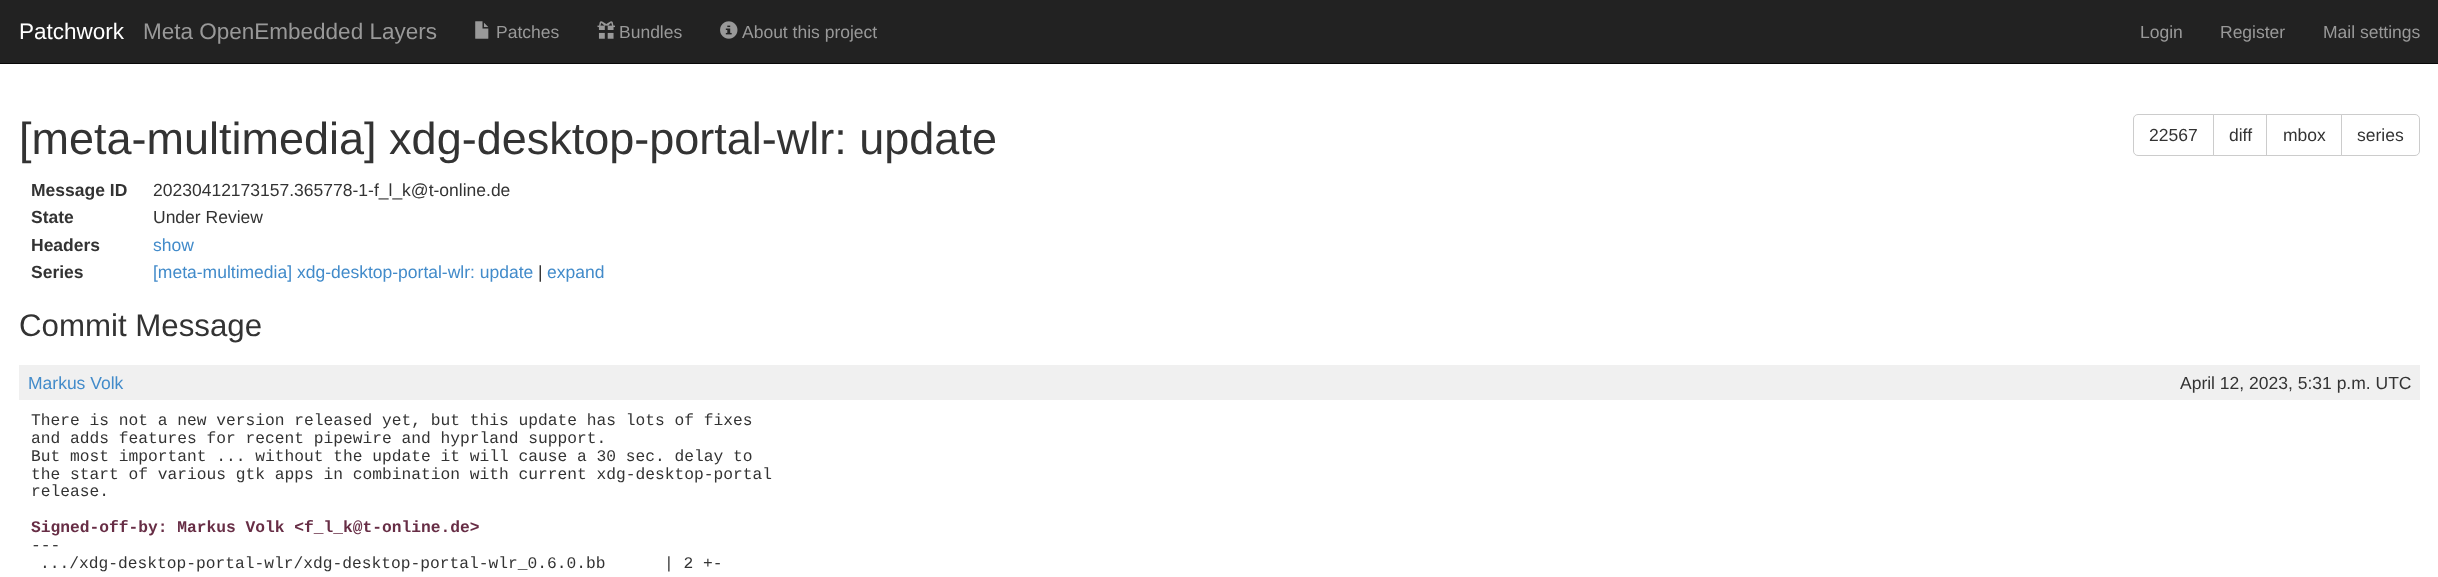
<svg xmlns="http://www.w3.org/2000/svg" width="2438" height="577">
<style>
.a{font:22.5px Liberation Sans;fill:#fff}
.b{font:22.5px Liberation Sans;fill:#999}
.c{font:17.5px Liberation Sans;fill:#999}
.d{font:45px Liberation Sans;fill:#333}
.e{font:17.5px Liberation Sans;fill:#333}
.f{font:bold 17.5px Liberation Sans;fill:#333}
.g{font:17.5px Liberation Sans;fill:#428bca}
.h{font:31.25px Liberation Sans;fill:#333}
.i{font:16.25px Liberation Mono;fill:#333}
.j{font:bold 16.25px Liberation Mono;fill:#672d45}
</style>
<rect width="100%" height="100%" fill="#fff"/>
<path fill="#222" d="M0 0h2438v63H0z"/>
<path fill="#080808" d="M0 63h2438v1H0z"/>
<image href="1.png" x="475" y="21" width="14" height="18"/>
<image href="2.png" x="597" y="21" width="18" height="18"/>
<image href="3.png" x="720" y="21" width="18" height="18"/>
<path fill="none" stroke="#ccc" d="M2138 114.5h75.5v41h-75.5c-2.5 0-4.5-2-4.5-4.5v-32c0-2.5 2-4.5 4.5-4.5z"/>
<path fill="none" stroke="#ccc" d="M2213.5 114.5h54v41H2213.5z"/>
<path fill="#fff" d="M2267 115h1v40H2267z"/>
<path fill="none" stroke="#ccc" d="M2266.5 114.5h76v41H2266.5z"/>
<path fill="#fff" stroke="#ccc" d="M2341.5 114.5h73.5c2.5 0 4.5 2 4.5 4.5v32c0 2.5-2 4.5-4.5 4.5h-73.5z"/>
<path fill="#f0f0f0" d="M19 365h2401v35H19z"/>
<text class="a" x="19" y="39">Patchwork</text>
<text class="b" x="143" y="39">Meta OpenEmbedded Layers</text>
<text class="c" x="496" y="38">Patches</text>
<text class="c" x="619" y="38">Bundles</text>
<text class="c" x="742" y="38">About this project</text>
<text class="c" x="2140" y="38">Login</text>
<text class="c" x="2220" y="38">Register</text>
<text class="c" x="2323" y="38">Mail settings</text>
<text class="d" x="19" y="154">[meta-multimedia] xdg-desktop-portal-wlr: update</text>
<text class="e" x="2149" y="141">22567</text>
<text class="e" x="2229" y="141">diff</text>
<text class="e" x="2283" y="141">mbox</text>
<text class="e" x="2357" y="141">series</text>
<text class="f" x="31" y="196">Message ID</text>
<text class="e" x="153" y="196">20230412173157.365778-1-f_l_k@t-online.de</text>
<text class="f" x="31" y="223">State</text>
<text class="e" x="153" y="223">Under Review</text>
<text class="f" x="31" y="251">Headers</text>
<text class="g" x="153" y="251">show</text>
<text class="f" x="31" y="278">Series</text>
<text class="g" x="153" y="278">[meta-multimedia] xdg-desktop-portal-wlr: update</text>
<text class="e" x="538" y="278">|</text>
<text class="g" x="547" y="278">expand</text>
<text class="h" x="19" y="336">Commit Message</text>
<text class="g" x="28" y="389">Markus Volk</text>
<text class="e" x="2180" y="389">April 12, 2023, 5:31 p.m. UTC</text>
<text class="i" x="31" y="425">There is not a new version released yet, but this update has lots of fixes</text>
<text class="i" x="31" y="443">and adds features for recent pipewire and hyprland support.</text>
<text class="i" x="31" y="461">But most important ... without the update it will cause a 30 sec. delay to</text>
<text class="i" x="31" y="479">the start of various gtk apps in combination with current xdg-desktop-portal</text>
<text class="i" x="31" y="496">release.</text>
<text class="j" x="31" y="532">Signed-off-by: Markus Volk &lt;f_l_k@t-online.de&gt;</text>
<text class="i" x="31" y="550">---</text>
<text class="i" xml:space="preserve" x="40" y="568">.../xdg-desktop-portal-wlr/xdg-desktop-portal-wlr_0.6.0.bb      | 2 +-</text>
</svg>
